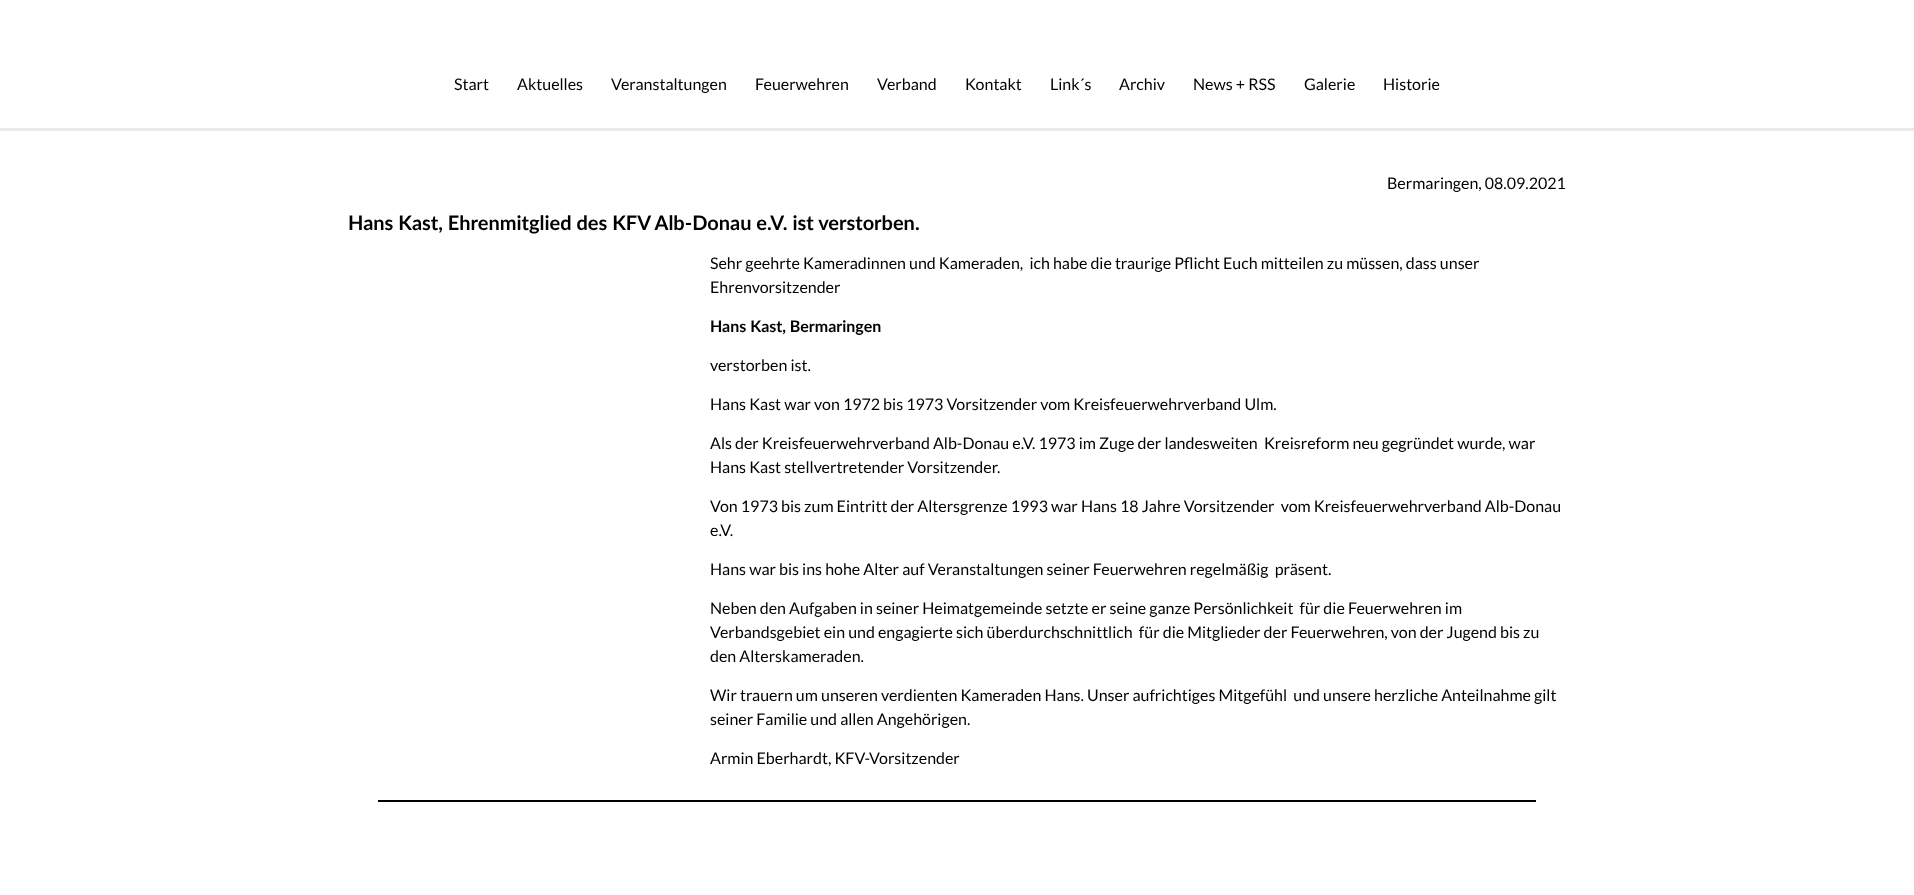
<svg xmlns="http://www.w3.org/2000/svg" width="1914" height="895">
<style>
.a{font:16px Lato;fill:#000}
.b{font:bold 20px Lato;fill:#000}
.c{font:bold 16px Lato;fill:#000}
</style>
<rect width="100%" height="100%" fill="#fff"/>
<path fill="#eaeaea" d="M0 128h1914v3H0z"/>
<path fill="#000" d="M378 800h1158v2H378z"/>
<text class="a" x="454" y="90">Start</text>
<text class="a" x="517" y="90">Aktuelles</text>
<text class="a" x="611" y="90">Veranstaltungen</text>
<text class="a" x="755" y="90">Feuerwehren</text>
<text class="a" x="877" y="90">Verband</text>
<text class="a" x="965" y="90">Kontakt</text>
<text class="a" x="1050" y="90">Link´s</text>
<text class="a" x="1119" y="90">Archiv</text>
<text class="a" x="1193" y="90">News + RSS</text>
<text class="a" x="1304" y="90">Galerie</text>
<text class="a" x="1383" y="90">Historie</text>
<text class="a" x="1387" y="189">Bermaringen, 08.09.2021</text>
<text class="b" x="348" y="230">Hans Kast, Ehrenmitglied des KFV Alb-Donau e.V. ist verstorben.</text>
<text class="a" xml:space="preserve" x="710" y="269">Sehr geehrte Kameradinnen und Kameraden,  ich habe die traurige Pflicht Euch mitteilen zu müssen, dass unser</text>
<text class="a" x="710" y="293">Ehrenvorsitzender</text>
<text class="c" x="710" y="332">Hans Kast, Bermaringen</text>
<text class="a" x="710" y="371">verstorben ist.</text>
<text class="a" x="710" y="410">Hans Kast war von 1972 bis 1973 Vorsitzender vom Kreisfeuerwehrverband Ulm.</text>
<text class="a" xml:space="preserve" x="710" y="449">Als der Kreisfeuerwehrverband Alb-Donau e.V. 1973 im Zuge der landesweiten  Kreisreform neu gegründet wurde, war</text>
<text class="a" x="710" y="473">Hans Kast stellvertretender Vorsitzender.</text>
<text class="a" xml:space="preserve" x="710" y="512">Von 1973 bis zum Eintritt der Altersgrenze 1993 war Hans 18 Jahre Vorsitzender  vom Kreisfeuerwehrverband Alb-Donau</text>
<text class="a" x="710" y="536">e.V.</text>
<text class="a" xml:space="preserve" x="710" y="575">Hans war bis ins hohe Alter auf Veranstaltungen seiner Feuerwehren regelmäßig  präsent.</text>
<text class="a" xml:space="preserve" x="710" y="614">Neben den Aufgaben in seiner Heimatgemeinde setzte er seine ganze Persönlichkeit  für die Feuerwehren im</text>
<text class="a" xml:space="preserve" x="710" y="638">Verbandsgebiet ein und engagierte sich überdurchschnittlich  für die Mitglieder der Feuerwehren, von der Jugend bis zu</text>
<text class="a" x="710" y="662">den Alterskameraden.</text>
<text class="a" xml:space="preserve" x="710" y="701">Wir trauern um unseren verdienten Kameraden Hans. Unser aufrichtiges Mitgefühl  und unsere herzliche Anteilnahme gilt</text>
<text class="a" x="710" y="725">seiner Familie und allen Angehörigen.</text>
<text class="a" x="710" y="764">Armin Eberhardt, KFV-Vorsitzender</text>
</svg>
